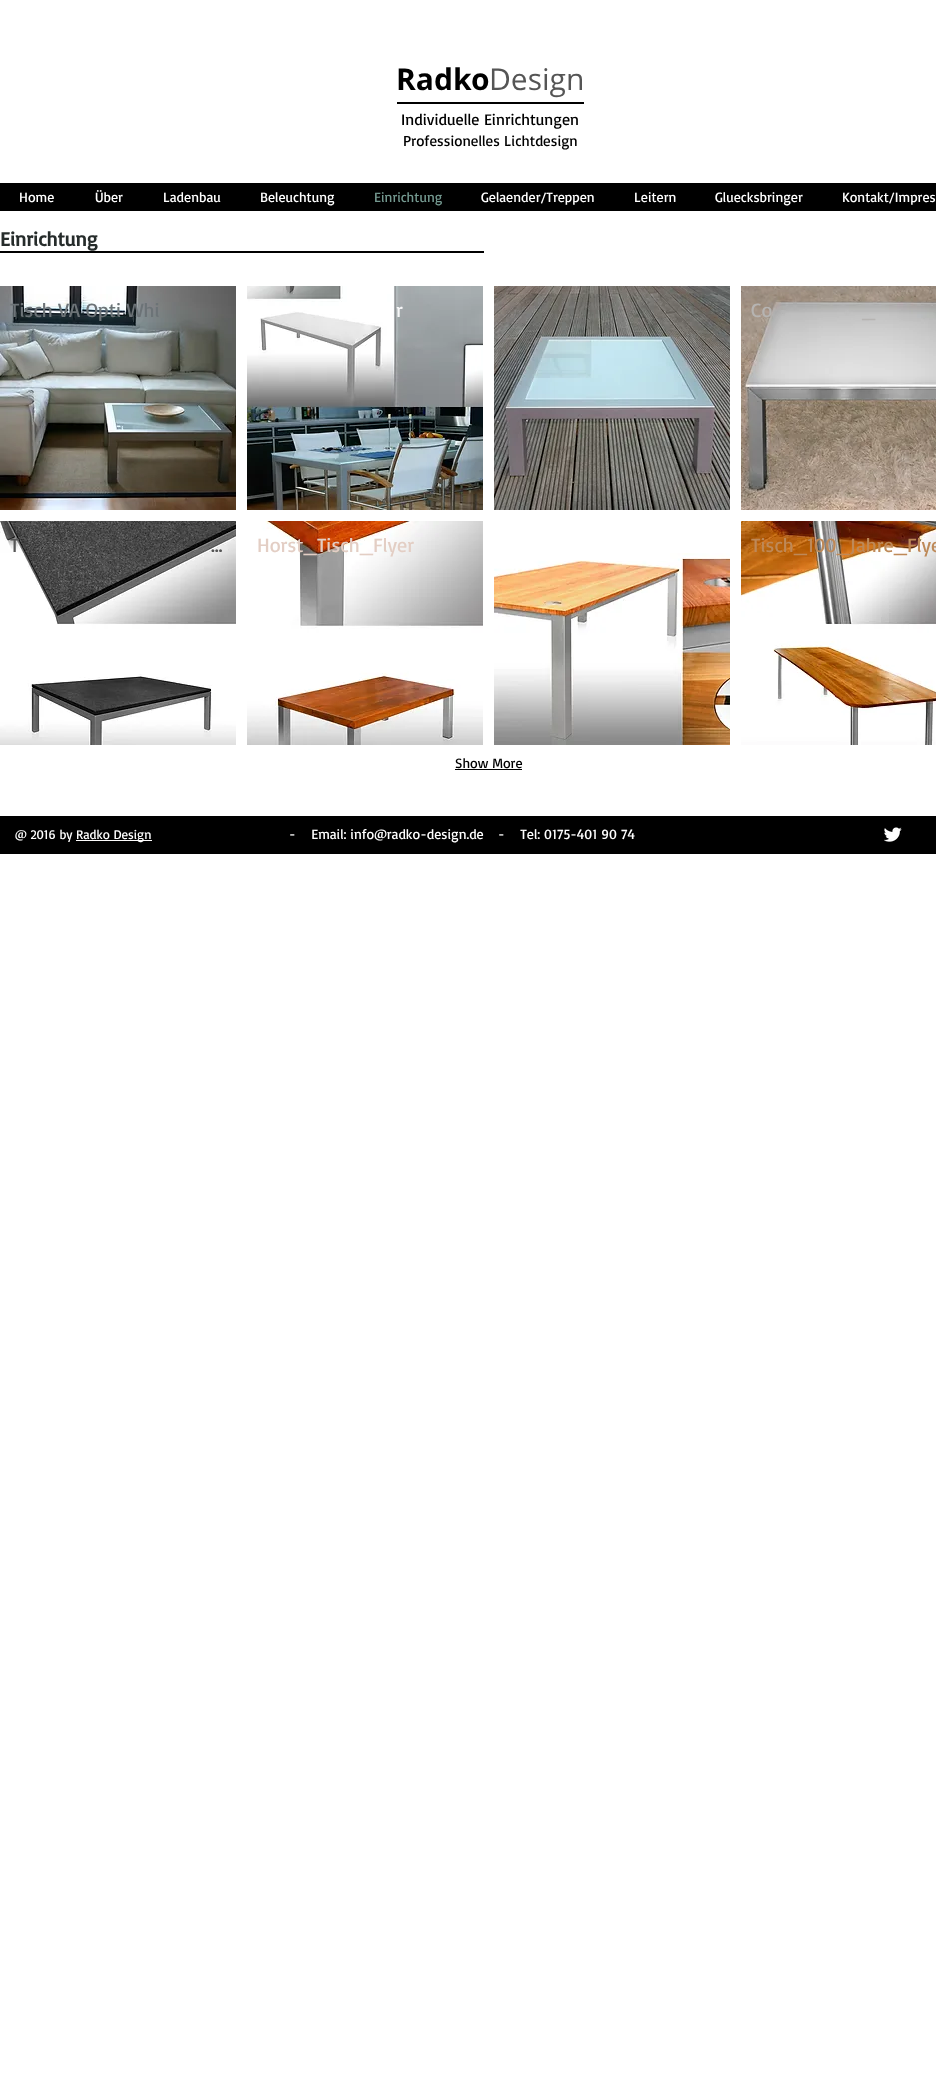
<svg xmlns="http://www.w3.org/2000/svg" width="936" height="2082">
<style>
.a{font:bold 30px Open Sans;fill:#000}
.b{font:30px Open Sans;fill:#555}
.c{font:16px Basic;fill:#000}
.d{font:15px Basic;fill:#000}
.e{font:14px Basic;fill:#fff}
.f{font:14px Basic;fill:#749990}
.g{font:bold 20px Basic;fill:#262c2b}
.h{font:20px Basic;fill:#6c7377}
.i{font:20px Basic;fill:#f7f7f8}
.j{font:20px Basic;fill:#b6b4b2}
.k{font:20px Basic;fill:#555}
.l{font:20px Basic;fill:#e3cec4}
.m{font:20px Basic;fill:#be8958}
.n{font:14px Basic;fill:#000}
.o{font:13px Basic;fill:#fff}
</style>
<rect width="100%" height="100%" fill="#fff"/>
<path fill="#000" d="M397 102h187v2H397z"/>
<path fill="#000" d="M0 183h936v28H0z"/>
<path fill="#000" d="M0 251h484v2H0z"/>
<image href="1.png" x="0" y="286" width="236" height="224"/>
<image href="2.png" x="247" y="286" width="236" height="224"/>
<image href="3.png" x="494" y="286" width="236" height="224"/>
<image href="4.png" x="741" y="286" width="195" height="224"/>
<image href="5.png" x="0" y="521" width="236" height="224"/>
<image href="6.png" x="247" y="521" width="236" height="224"/>
<image href="7.png" x="741" y="521" width="195" height="224"/>
<image href="8.png" x="494" y="553" width="236" height="192"/>
<path fill="#000" d="M455 769h67v1H455z"/>
<path fill="#000" d="M0 816h936v38H0z"/>
<path fill="#fefdfd" d="M76 840h76v1H76z"/>
<image href="9.png" x="884" y="827" width="18" height="15"/>
<text class="a" x="396" y="90">Radko</text>
<text class="b" x="489" y="90">Design</text>
<text class="c" x="401" y="125">Individuelle Einrichtungen</text>
<text class="d" x="403" y="146">Professionelles Lichtdesign</text>
<text class="e" x="19" y="202">Home</text>
<text class="e" x="95" y="202">Über</text>
<text class="e" x="163" y="202">Ladenbau</text>
<text class="e" x="260" y="202">Beleuchtung</text>
<text class="f" x="374" y="202">Einrichtung</text>
<text class="e" x="481" y="202">Gelaender/Treppen</text>
<text class="e" x="634" y="202">Leitern</text>
<text class="e" x="715" y="202">Gluecksbringer</text>
<text class="e" x="842" y="202">Kontakt/Impres</text>
<text class="g" x="0" y="246">Einrichtung</text>
<text class="h" x="10" y="317">Tisch VA Opti Whi</text>
<text class="i" x="396" y="317">r</text>
<text class="j" x="751" y="317">Co</text>
<text class="j" x="862" y="317">_</text>
<text class="k" x="10" y="552">T</text>
<text class="k" x="211" y="552">…</text>
<text class="l" x="257" y="552">Horst_Tisch_Flyer</text>
<text class="m" x="751" y="552">Tisch_100_Jahre_Flye</text>
<text class="n" x="455" y="768">Show More</text>
<text class="o" x="15" y="839">@ 2016 by</text>
<text class="o" x="76" y="839">Radko Design</text>
<text class="e" xml:space="preserve" x="289" y="839">-    Email: info@radko-design.de</text>
<text class="e" xml:space="preserve" x="498" y="839">-    Tel: 0175-401 90 74</text>
</svg>
